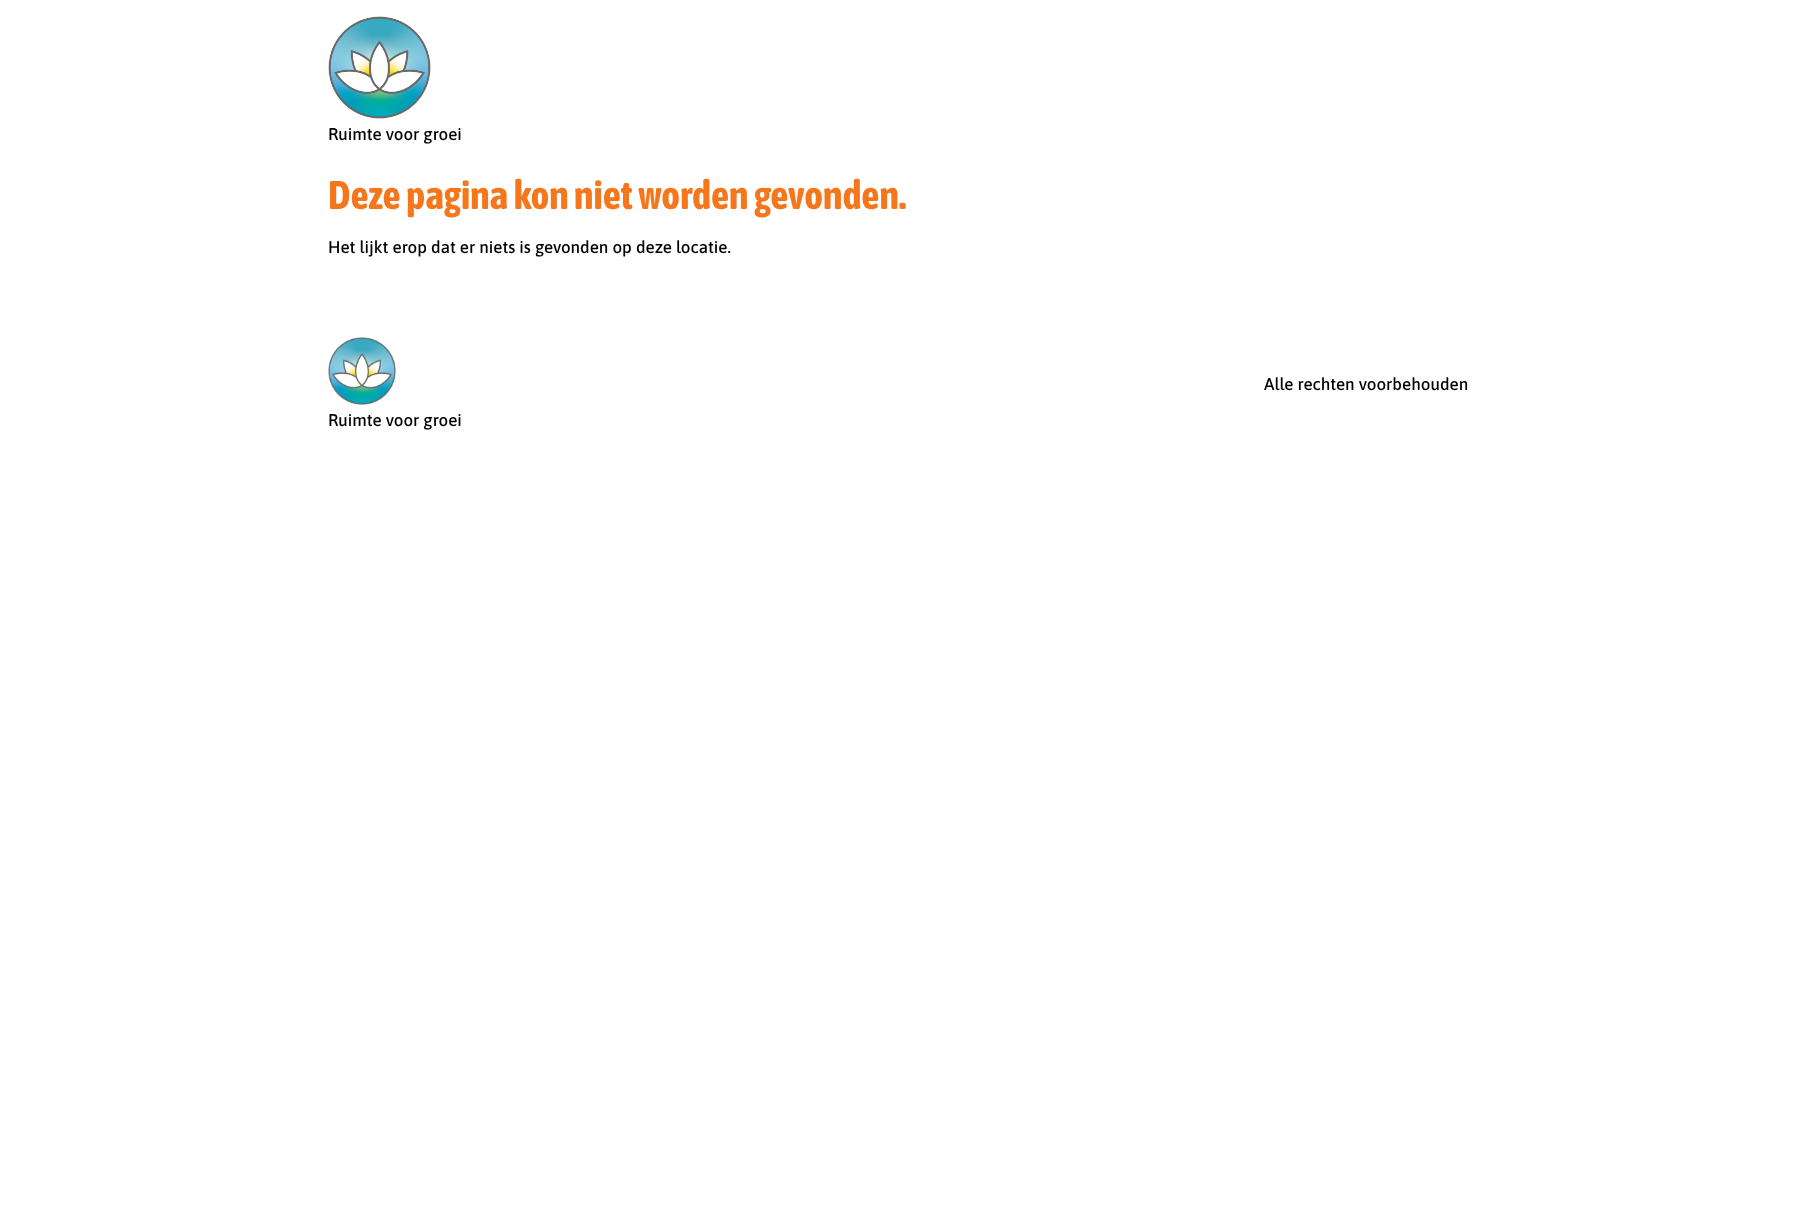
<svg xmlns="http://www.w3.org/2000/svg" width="1796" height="1210">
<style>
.a{font:500 17px Asap;fill:#000}
.b{font:bold 40px Asap Condensed;fill:#f6761b}
</style>
<rect width="100%" height="100%" fill="#fff"/>
<image href="1.png" x="328" y="16" width="103" height="103"/>
<image href="2.png" x="328" y="337" width="68" height="68"/>
<text class="a" x="328" y="140">Ruimte voor groei</text>
<text class="b" x="328" y="209">Deze pagina kon niet worden gevonden.</text>
<text class="a" x="328" y="253">Het lijkt erop dat er niets is gevonden op deze locatie.</text>
<text class="a" x="1264" y="390">Alle rechten voorbehouden</text>
<text class="a" x="328" y="426">Ruimte voor groei</text>
</svg>
